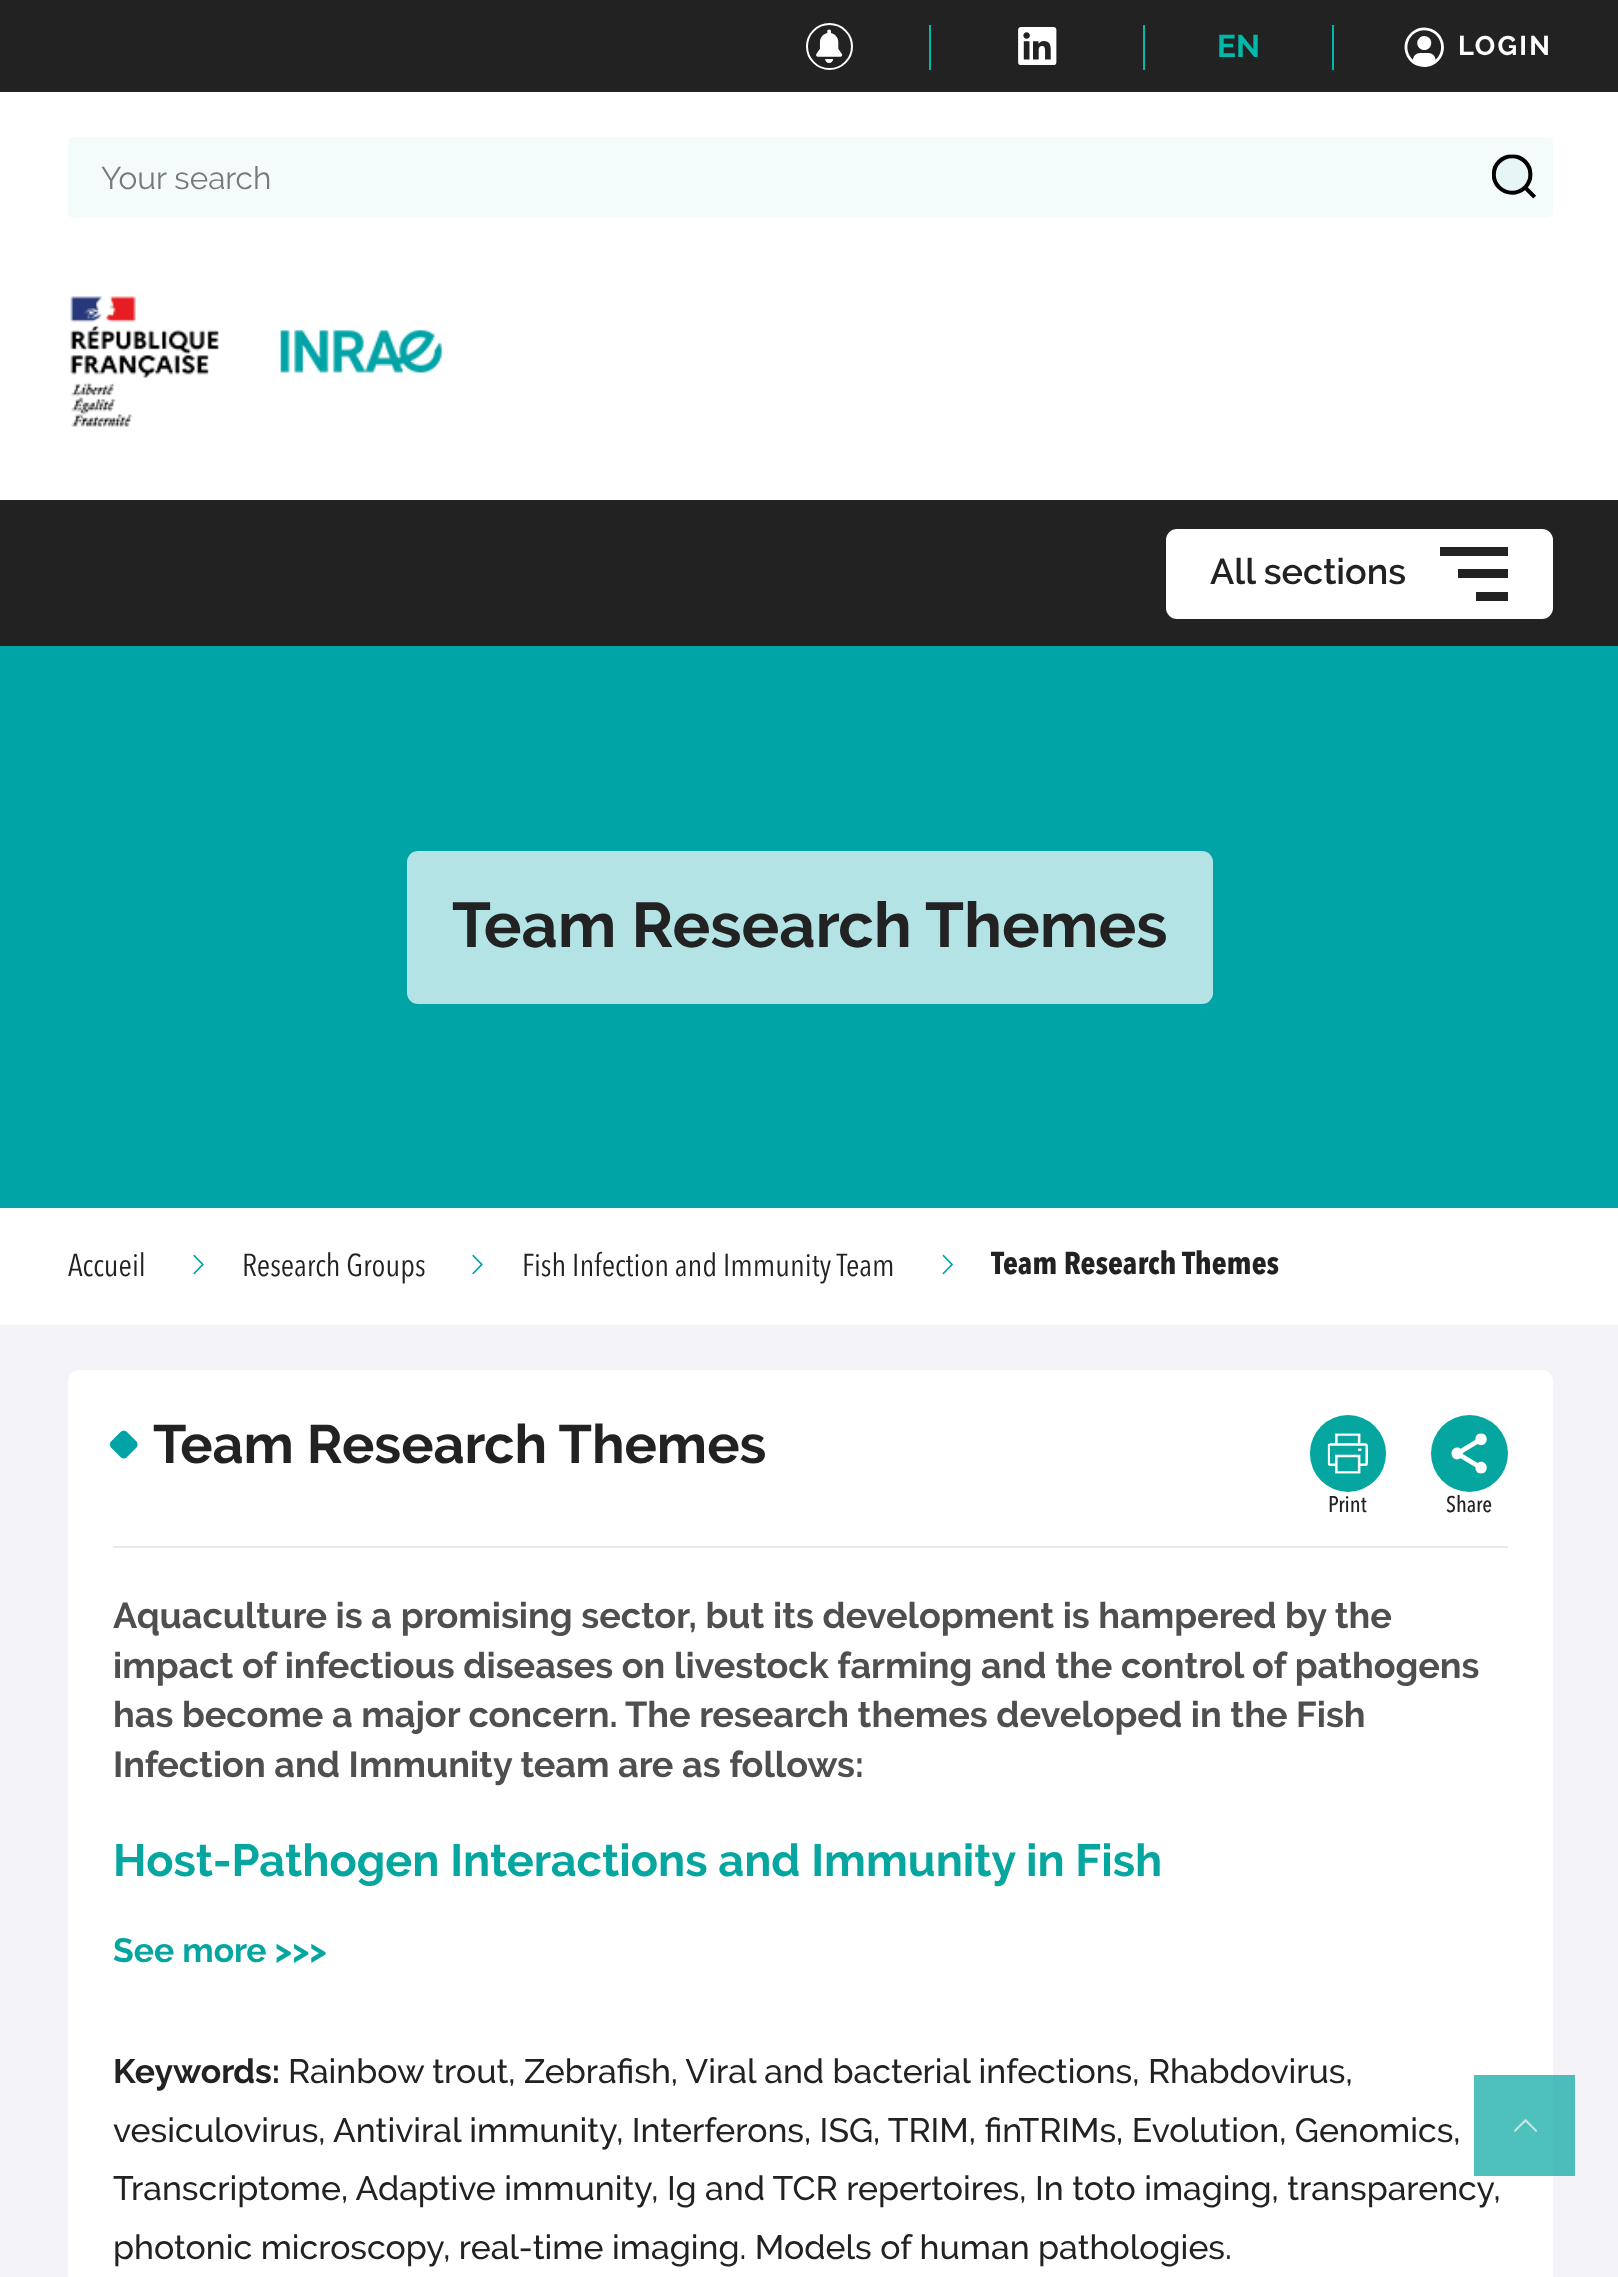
<svg xmlns="http://www.w3.org/2000/svg" width="1618" height="2277">
<style>
.a{font:bold 31.5px Raleway;fill:#00b9ab}
.b{font:bold 27px Raleway;letter-spacing:2.25px;fill:#fff}
.c{font:31.5px Raleway;fill:#767979}
.d{font:600 36px Raleway;fill:#222}
.e{font:bold 63px Raleway;fill:#222}
.f{font:31.5px Avenir Next;fill:#222}
.g{font:bold 31.5px Avenir Next;fill:#222}
.h{font:bold 54px Raleway;fill:#222}
.i{font:500 22.5px Avenir Next;fill:#222}
.j{font:bold 36px Raleway;fill:#4f4f4f}
.k{font:bold 45px Raleway;fill:#04a69f}
.l{font:bold 33.75px Raleway;fill:#04a69f}
.m{font:bold 33.75px Raleway;fill:#222}
.n{font:500 33.75px Raleway;fill:#222}
</style>
<rect width="100%" height="100%" fill="#fff"/>
<path fill="#222" d="M0 0h1618v92H0z"/>
<circle fill="none" stroke="#fff" stroke-width="2" cx="829.5" cy="46.5" r="22.5"/>
<image href="1.png" x="816" y="29" width="27" height="34"/>
<path fill="#00b9ab" d="M929 25h2v45H929z"/>
<image href="2.png" x="1018" y="27" width="39" height="38"/>
<path fill="#00b9ab" d="M1143 25h2v45H1143z"/>
<path fill="#00b9ab" d="M1332 25h2v45H1332z"/>
<image href="3.png" x="1404" y="27" width="40" height="40"/>
<rect fill="#f3fbfb" x="68" y="137" width="1485" height="81" rx="5"/>
<image href="4.png" x="1492" y="154" width="44" height="45"/>
<image href="5.png" x="70" y="296" width="372" height="131"/>
<path fill="#222" d="M0 500h1618v146H0z"/>
<rect fill="#fff" x="1166" y="529" width="387" height="90" rx="11"/>
<path fill="#222" d="M1440 547h68v9H1440z"/>
<path fill="#222" d="M1458 569h50v9H1458z"/>
<path fill="#222" d="M1476 592h32v9H1476z"/>
<path fill="#00a3a6" d="M0 646h1618v562H0z"/>
<rect fill="#b3e3e4" x="407" y="851" width="806" height="153" rx="11"/>
<image href="6.png" x="193" y="1254" width="11" height="21"/>
<image href="6.png" x="472" y="1254" width="11" height="21"/>
<image href="7.png" x="942" y="1254" width="11" height="21"/>
<path fill="#f3f3f8" d="M0 1325h1618v952H0z"/>
<path fill="#4cbdba" d="M1553 2075h22v101H1553z"/>
<rect fill="#fff" x="68" y="1370" width="1485" height="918" rx="11"/>
<path fill="#4fc1bc" d="M1474 2075h79v101H1474z"/>
<path fill="#eaeaea" d="M113 1546h1395v2H113z"/>
<path fill="#00a3a6" d="M127 1432l9.5 9.5c1.5 1.5 1.5 4.5 0 6l-9.5 9.5c-2 2-4.5 2-6.5 0l-9.5-9.5c-1.5-1.5-1.5-4.5 0-6l9.5-9.5c2-2 4.5-2 6.5 0z"/>
<rect fill="#04a69f" x="1310" y="1415" width="76" height="77" rx="38"/>
<image href="8.png" x="1327" y="1433" width="41" height="41"/>
<circle fill="#04a69f" cx="1469.5" cy="1453.5" r="38.5"/>
<image href="9.png" x="1451" y="1433" width="36" height="41"/>
<image href="10.png" x="1514" y="2118" width="23" height="14"/>
<text class="a" x="1217" y="57">EN</text>
<text class="b" x="1458" y="55">LOGIN</text>
<text class="c" x="101" y="189">Your search</text>
<text class="d" x="1210" y="584">All sections</text>
<text class="e" x="452" y="947">Team Research Themes</text>
<text class="f" x="68" y="1276">Accueil</text>
<text class="f" x="242" y="1276">Research Groups</text>
<text class="f" x="522" y="1276">Fish Infection and Immunity Team</text>
<text class="g" x="991" y="1274">Team Research Themes</text>
<text class="h" x="153" y="1463">Team Research Themes</text>
<text class="i" x="1328" y="1512">Print</text>
<text class="i" x="1446" y="1512">Share</text>
<text class="j" x="113" y="1628">Aquaculture is a promising sector, but its development is hampered by the</text>
<text class="j" x="113" y="1678">impact of infectious diseases on livestock farming and the control of pathogens</text>
<text class="j" x="113" y="1727">has become a major concern.</text>
<text class="j" x="625" y="1727">The research themes developed in the Fish</text>
<text class="j" x="113" y="1777">Infection and Immunity team are as follows:</text>
<text class="k" x="113" y="1876">Host-Pathogen Interactions and Immunity in Fish</text>
<text class="l" x="113" y="1962">See more &gt;&gt;&gt;</text>
<text class="m" x="113" y="2083">Keywords:</text>
<text class="n" x="288" y="2083">Rainbow trout, Zebrafish, Viral and bacterial infections, Rhabdovirus,</text>
<text class="n" x="113" y="2142">vesiculovirus, Antiviral immunity, Interferons, ISG, TRIM, finTRIMs, Evolution, Genomics,</text>
<text class="n" x="113" y="2200">Transcriptome, Adaptive immunity, Ig and TCR repertoires, In toto imaging, transparency,</text>
<text class="n" x="113" y="2259">photonic microscopy, real-time imaging. Models of human pathologies.</text>
</svg>
